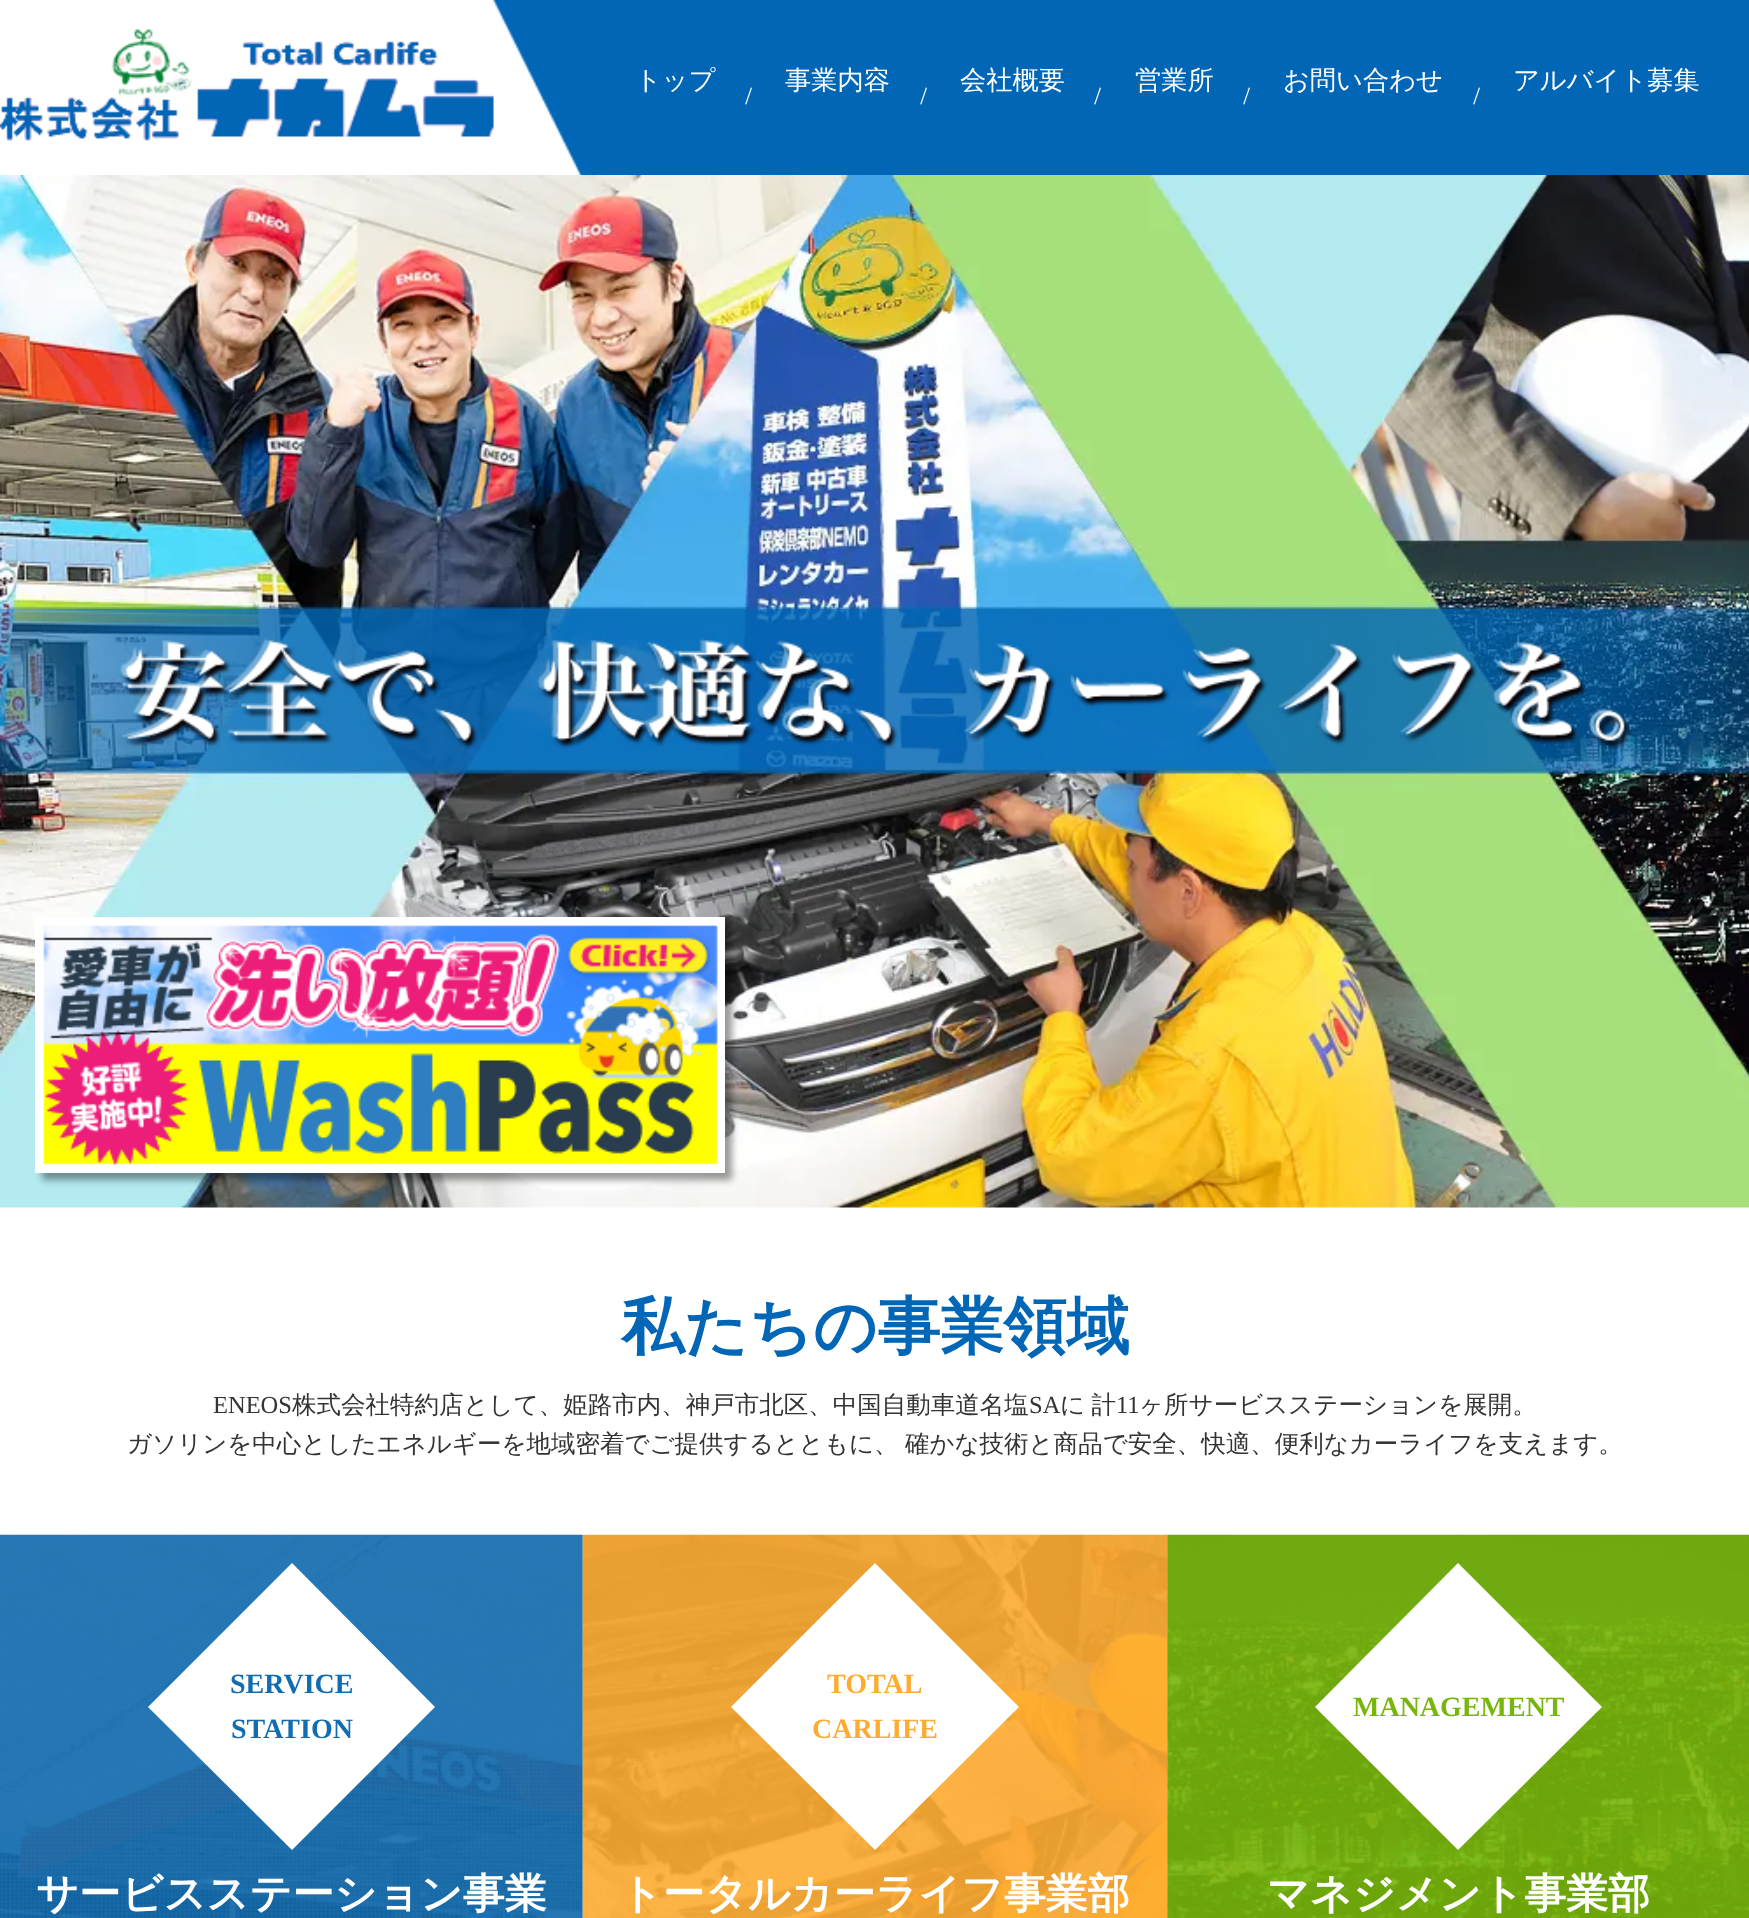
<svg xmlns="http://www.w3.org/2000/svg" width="1749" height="1918">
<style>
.a{font:500 26.25px WenQuanYi Zen Hei;fill:#fff}
.b{font:24.5px Liberation Serif;fill:#fff}
.c{font:bold 63px WenQuanYi Zen Hei;fill:#0066b5}
.d{font:24.5px Liberation Serif;fill:#333}
.e{font:500 24.5px WenQuanYi Zen Hei;fill:#333}
.f{font:bold 28px Liberation Serif;fill:#116cb0}
.g{font:bold 41.9px WenQuanYi Zen Hei;fill:#fff}
.h{font:bold 28px Liberation Serif;fill:#feab31}
.i{font:bold 28px Liberation Serif;fill:#77b60a}
</style>
<rect width="100%" height="100%" fill="#fff"/>
<image href="2.png" x="493" y="0" width="89" height="175"/>
<image href="1.png" x="0" y="29" width="494" height="112"/>
<path fill="#0066b5" d="M582 0h1167v175H582z"/>
<image href="3.png" x="0" y="175" width="1749" height="1033"/>
<image href="4.png" x="0" y="609" width="1749" height="165"/>
<path fill="#00000066" filter="blur(3.5px)" d="M42 924h690v256H42z"/>
<path fill="none" stroke="#fff" stroke-width="4" d="M37 919h686v252H37z"/>
<image href="5.png" x="39" y="921" width="682" height="248"/>
<image href="6.png" x="0" y="1534" width="583" height="384"/>
<path fill="#fff" d="M292 1563l143 144l-143 143l-144-143z"/>
<image href="7.png" x="582" y="1534" width="586" height="384"/>
<path fill="#fff" d="M875 1563l144 144l-144 143l-144-143z"/>
<image href="8.png" x="1167" y="1534" width="582" height="384"/>
<path fill="#fff" d="M1458 1563l144 144l-144 143l-143-143z"/>
<text class="a" x="635" y="89">トップ</text>
<text class="a" x="785" y="89">事業内容</text>
<text class="b" x="752" y="88" transform="rotate(180 752 88)">/</text>
<text class="a" x="960" y="89">会社概要</text>
<text class="b" x="927" y="88" transform="rotate(180 927 88)">/</text>
<text class="a" x="1135" y="89">営業所</text>
<text class="b" x="1101" y="88" transform="rotate(180 1101 88)">/</text>
<text class="a" x="1283" y="89">お問い合わせ</text>
<text class="b" x="1250" y="88" transform="rotate(180 1250 88)">/</text>
<text class="a" x="1513" y="89">アルバイト募集</text>
<text class="b" x="1480" y="88" transform="rotate(180 1480 88)">/</text>
<text class="c" x="621" y="1348">私たちの事業領域</text>
<text class="d" x="213" y="1413">ENEOS</text>
<text class="e" x="292" y="1413">株式会社特約店として、姫路市内、神戸市北区、中国自動車道名塩</text>
<text class="d" x="1029" y="1413">SA</text>
<text class="e" x="1060" y="1413" word-spacing="-1">に 計</text>
<text class="d" x="1116" y="1413">11</text>
<text class="e" x="1139" y="1413">ヶ所サービスステーションを展開。</text>
<text class="e" x="127" y="1452" word-spacing="-1">ガソリンを中心としたエネルギーを地域密着でご提供するとともに、 確かな技術と商品で安全、快適、便利なカーライフを支えます。</text>
<text class="f" x="230" y="1693">SERVICE</text>
<text class="f" x="231" y="1738">STATION</text>
<text class="g" x="36" y="1908">サービスステーション事業</text>
<text class="h" x="827" y="1693">TOTAL</text>
<text class="h" x="812" y="1738">CARLIFE</text>
<text class="g" x="620" y="1908">トータルカーライフ事業部</text>
<text class="i" x="1353" y="1716">MANAGEMENT</text>
<text class="g" x="1267" y="1908">マネジメント事業部</text>
</svg>
